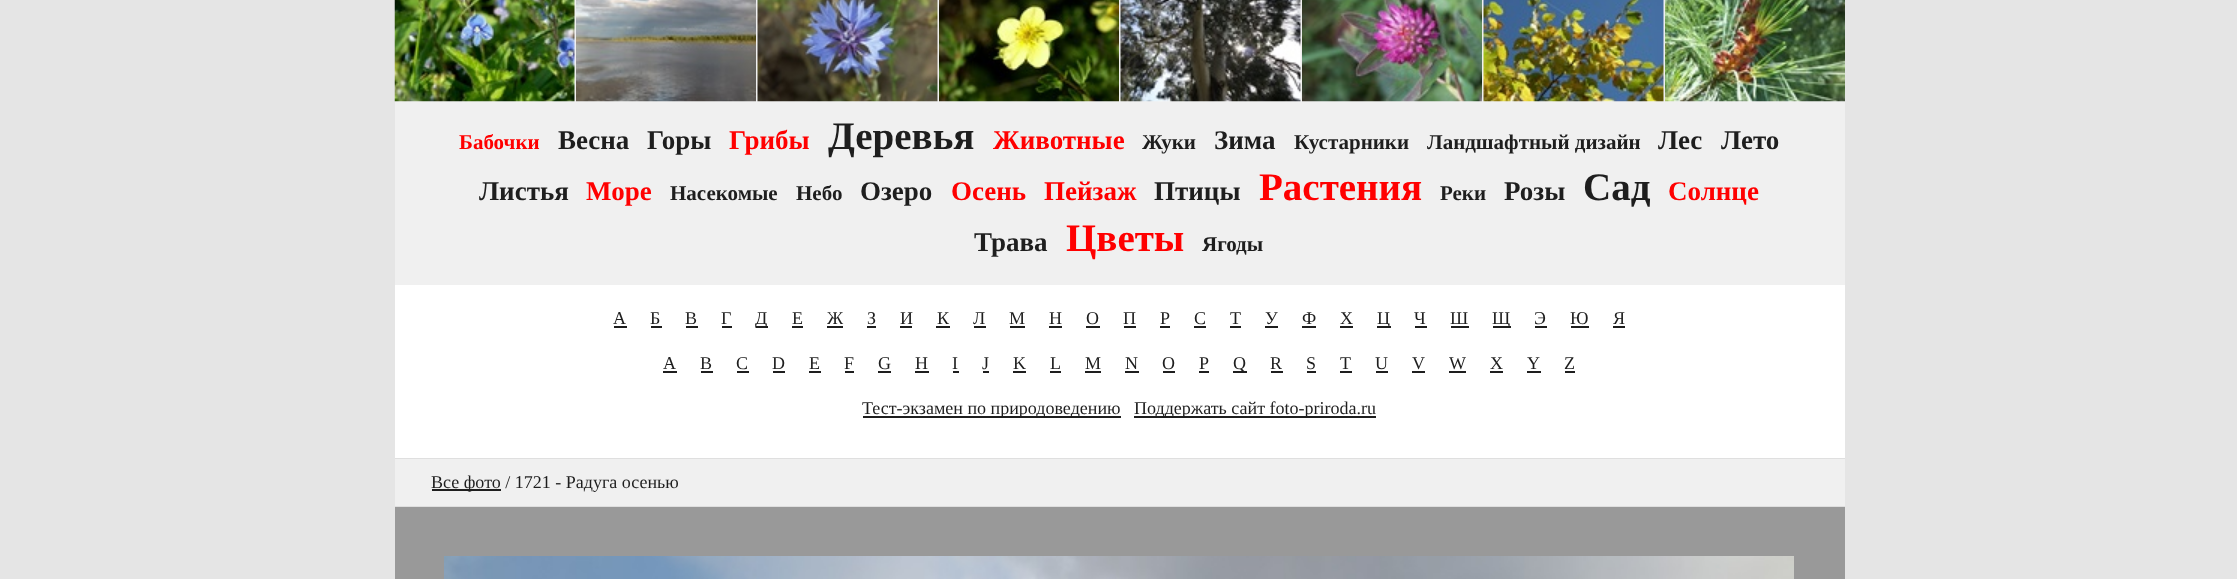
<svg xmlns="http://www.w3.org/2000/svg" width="2237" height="579">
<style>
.a{font:bold 21px Liberation Serif;fill:#f00}
.b{font:bold 27px Liberation Serif;fill:#1e1e1e}
.c{font:bold 27px Liberation Serif;fill:#f00}
.d{font:bold 39px Liberation Serif;fill:#1e1e1e}
.e{font:bold 21px Liberation Serif;fill:#1e1e1e}
.f{font:bold 39px Liberation Serif;fill:#f00}
.g{font:18px Liberation Serif;fill:#1e1e1e}
</style>
<rect width="100%" height="100%" fill="#e5e5e5"/>
<path fill="#fff" d="M395 285h1450v173H395z"/>
<path fill="#f0f0f0" d="M395 0h1450v285H395z"/>
<image href="1.png" x="394" y="0" width="181" height="102"/>
<image href="2.png" x="576" y="0" width="180" height="102"/>
<image href="3.png" x="757" y="0" width="181" height="102"/>
<image href="4.png" x="939" y="0" width="180" height="102"/>
<image href="5.png" x="1120" y="0" width="181" height="102"/>
<image href="6.png" x="1302" y="0" width="180" height="102"/>
<image href="7.png" x="1483" y="0" width="181" height="102"/>
<image href="8.png" x="1665" y="0" width="180" height="102"/>
<path fill="#1e1e1e" d="M614 326h13v2H614z"/>
<path fill="#1e1e1e" d="M651 326h11v2H651z"/>
<path fill="#1e1e1e" d="M686 326h12v2H686z"/>
<path fill="#1e1e1e" d="M722 326h10v2H722z"/>
<path fill="#1e1e1e" d="M756 326h12v2H756z"/>
<path fill="#1e1e1e" d="M792 326h11v2H792z"/>
<path fill="#1e1e1e" d="M827 326h16v2H827z"/>
<path fill="#1e1e1e" d="M867 326h9v2H867z"/>
<path fill="#1e1e1e" d="M900 326h12v2H900z"/>
<path fill="#1e1e1e" d="M936 326h14v2H936z"/>
<path fill="#1e1e1e" d="M974 326h12v2H974z"/>
<path fill="#1e1e1e" d="M1010 326h15v2H1010z"/>
<path fill="#1e1e1e" d="M1049 326h13v2H1049z"/>
<path fill="#1e1e1e" d="M1086 326h14v2H1086z"/>
<path fill="#1e1e1e" d="M1124 326h12v2H1124z"/>
<path fill="#1e1e1e" d="M1160 326h10v2H1160z"/>
<path fill="#1e1e1e" d="M1194 326h12v2H1194z"/>
<path fill="#1e1e1e" d="M1230 326h11v2H1230z"/>
<path fill="#1e1e1e" d="M1265 326h13v2H1265z"/>
<path fill="#1e1e1e" d="M1302 326h14v2H1302z"/>
<path fill="#1e1e1e" d="M1340 326h13v2H1340z"/>
<path fill="#1e1e1e" d="M1377 326h14v2H1377z"/>
<path fill="#1e1e1e" d="M1415 326h12v2H1415z"/>
<path fill="#1e1e1e" d="M1451 326h18v2H1451z"/>
<path fill="#1e1e1e" d="M1493 326h18v2H1493z"/>
<path fill="#1e1e1e" d="M1535 326h12v2H1535z"/>
<path fill="#1e1e1e" d="M1571 326h18v2H1571z"/>
<path fill="#1e1e1e" d="M1613 326h12v2H1613z"/>
<path fill="#1e1e1e" d="M663 371h14v2H663z"/>
<path fill="#1e1e1e" d="M701 371h12v2H701z"/>
<path fill="#1e1e1e" d="M737 371h12v2H737z"/>
<path fill="#1e1e1e" d="M773 371h12v2H773z"/>
<path fill="#1e1e1e" d="M809 371h12v2H809z"/>
<path fill="#1e1e1e" d="M845 371h9v2H845z"/>
<path fill="#1e1e1e" d="M878 371h13v2H878z"/>
<path fill="#1e1e1e" d="M915 371h14v2H915z"/>
<path fill="#1e1e1e" d="M953 371h6v2H953z"/>
<path fill="#1e1e1e" d="M983 371h6v2H983z"/>
<path fill="#1e1e1e" d="M1013 371h13v2H1013z"/>
<path fill="#1e1e1e" d="M1050 371h11v2H1050z"/>
<path fill="#1e1e1e" d="M1085 371h16v2H1085z"/>
<path fill="#1e1e1e" d="M1125 371h14v2H1125z"/>
<path fill="#1e1e1e" d="M1163 371h12v2H1163z"/>
<path fill="#1e1e1e" d="M1199 371h10v2H1199z"/>
<path fill="#1e1e1e" d="M1233 371h14v2H1233z"/>
<path fill="#1e1e1e" d="M1271 371h12v2H1271z"/>
<path fill="#1e1e1e" d="M1307 371h9v2H1307z"/>
<path fill="#1e1e1e" d="M1340 371h12v2H1340z"/>
<path fill="#1e1e1e" d="M1376 371h12v2H1376z"/>
<path fill="#1e1e1e" d="M1412 371h13v2H1412z"/>
<path fill="#1e1e1e" d="M1449 371h17v2H1449z"/>
<path fill="#1e1e1e" d="M1490 371h13v2H1490z"/>
<path fill="#1e1e1e" d="M1527 371h14v2H1527z"/>
<path fill="#1e1e1e" d="M1565 371h10v2H1565z"/>
<path fill="#1e1e1e" d="M863 416h258v2H863z"/>
<path fill="#1e1e1e" d="M1134 416h242v2H1134z"/>
<path fill="#dfdfdf" d="M395 458h1450v1H395z"/>
<path fill="#f0f0f0" d="M395 459h1450v47H395z"/>
<path fill="#dfdfdf" d="M395 506h1450v1H395z"/>
<path fill="#1e1e1e" d="M432 489h69v2H432z"/>
<path fill="#999" d="M395 507h1450v72H395z"/>
<image href="9.png" x="444" y="556" width="1350" height="23"/>
<text class="a" x="459" y="149">Бабочки</text>
<text class="b" x="558" y="149">Весна</text>
<text class="b" x="647" y="149">Горы</text>
<text class="c" x="729" y="149">Грибы</text>
<text class="d" x="828" y="149">Деревья</text>
<text class="c" x="993" y="149">Животные</text>
<text class="e" x="1142" y="149">Жуки</text>
<text class="b" x="1214" y="149">Зима</text>
<text class="e" x="1294" y="149">Кустарники</text>
<text class="e" x="1427" y="149">Ландшафтный дизайн</text>
<text class="b" x="1658" y="149">Лес</text>
<text class="b" x="1721" y="149">Лето</text>
<text class="b" x="479" y="200">Листья</text>
<text class="c" x="586" y="200">Море</text>
<text class="e" x="670" y="200">Насекомые</text>
<text class="e" x="796" y="200">Небо</text>
<text class="b" x="860" y="200">Озеро</text>
<text class="c" x="951" y="200">Осень</text>
<text class="c" x="1044" y="200">Пейзаж</text>
<text class="b" x="1154" y="200">Птицы</text>
<text class="f" x="1259" y="200">Растения</text>
<text class="e" x="1440" y="200">Реки</text>
<text class="b" x="1504" y="200">Розы</text>
<text class="d" x="1583" y="200">Сад</text>
<text class="c" x="1668" y="200">Солнце</text>
<text class="b" x="974" y="251">Трава</text>
<text class="f" x="1066" y="251">Цветы</text>
<text class="e" x="1202" y="251">Ягоды</text>
<text class="g" x="613" y="324">А</text>
<text class="g" x="650" y="324">Б</text>
<text class="g" x="685" y="324">В</text>
<text class="g" x="721" y="324">Г</text>
<text class="g" x="755" y="324">Д</text>
<text class="g" x="792" y="324">Е</text>
<text class="g" x="827" y="324">Ж</text>
<text class="g" x="867" y="324">З</text>
<text class="g" x="900" y="324">И</text>
<text class="g" x="937" y="324">К</text>
<text class="g" x="973" y="324">Л</text>
<text class="g" x="1009" y="324">М</text>
<text class="g" x="1049" y="324">Н</text>
<text class="g" x="1086" y="324">О</text>
<text class="g" x="1123" y="324">П</text>
<text class="g" x="1160" y="324">Р</text>
<text class="g" x="1194" y="324">С</text>
<text class="g" x="1230" y="324">Т</text>
<text class="g" x="1265" y="324">У</text>
<text class="g" x="1302" y="324">Ф</text>
<text class="g" x="1340" y="324">Х</text>
<text class="g" x="1377" y="324">Ц</text>
<text class="g" x="1414" y="324">Ч</text>
<text class="g" x="1450" y="324">Ш</text>
<text class="g" x="1492" y="324">Щ</text>
<text class="g" x="1534" y="324">Э</text>
<text class="g" x="1570" y="324">Ю</text>
<text class="g" x="1613" y="324">Я</text>
<text class="g" x="663" y="369">A</text>
<text class="g" x="700" y="369">B</text>
<text class="g" x="736" y="369">C</text>
<text class="g" x="772" y="369">D</text>
<text class="g" x="809" y="369">E</text>
<text class="g" x="844" y="369">F</text>
<text class="g" x="878" y="369">G</text>
<text class="g" x="915" y="369">H</text>
<text class="g" x="952" y="369">I</text>
<text class="g" x="982" y="369">J</text>
<text class="g" x="1013" y="369">K</text>
<text class="g" x="1050" y="369">L</text>
<text class="g" x="1085" y="369">M</text>
<text class="g" x="1125" y="369">N</text>
<text class="g" x="1162" y="369">O</text>
<text class="g" x="1199" y="369">P</text>
<text class="g" x="1233" y="369">Q</text>
<text class="g" x="1270" y="369">R</text>
<text class="g" x="1306" y="369">S</text>
<text class="g" x="1340" y="369">T</text>
<text class="g" x="1375" y="369">U</text>
<text class="g" x="1412" y="369">V</text>
<text class="g" x="1449" y="369">W</text>
<text class="g" x="1490" y="369">X</text>
<text class="g" x="1527" y="369">Y</text>
<text class="g" x="1564" y="369">Z</text>
<text class="g" x="862" y="414">Тест-экзамен по природоведению</text>
<text class="g" x="1134" y="414">Поддержать сайт foto-priroda.ru</text>
<text class="g" x="431" y="488">Все фото / 1721 - Радуга осенью</text>
</svg>
